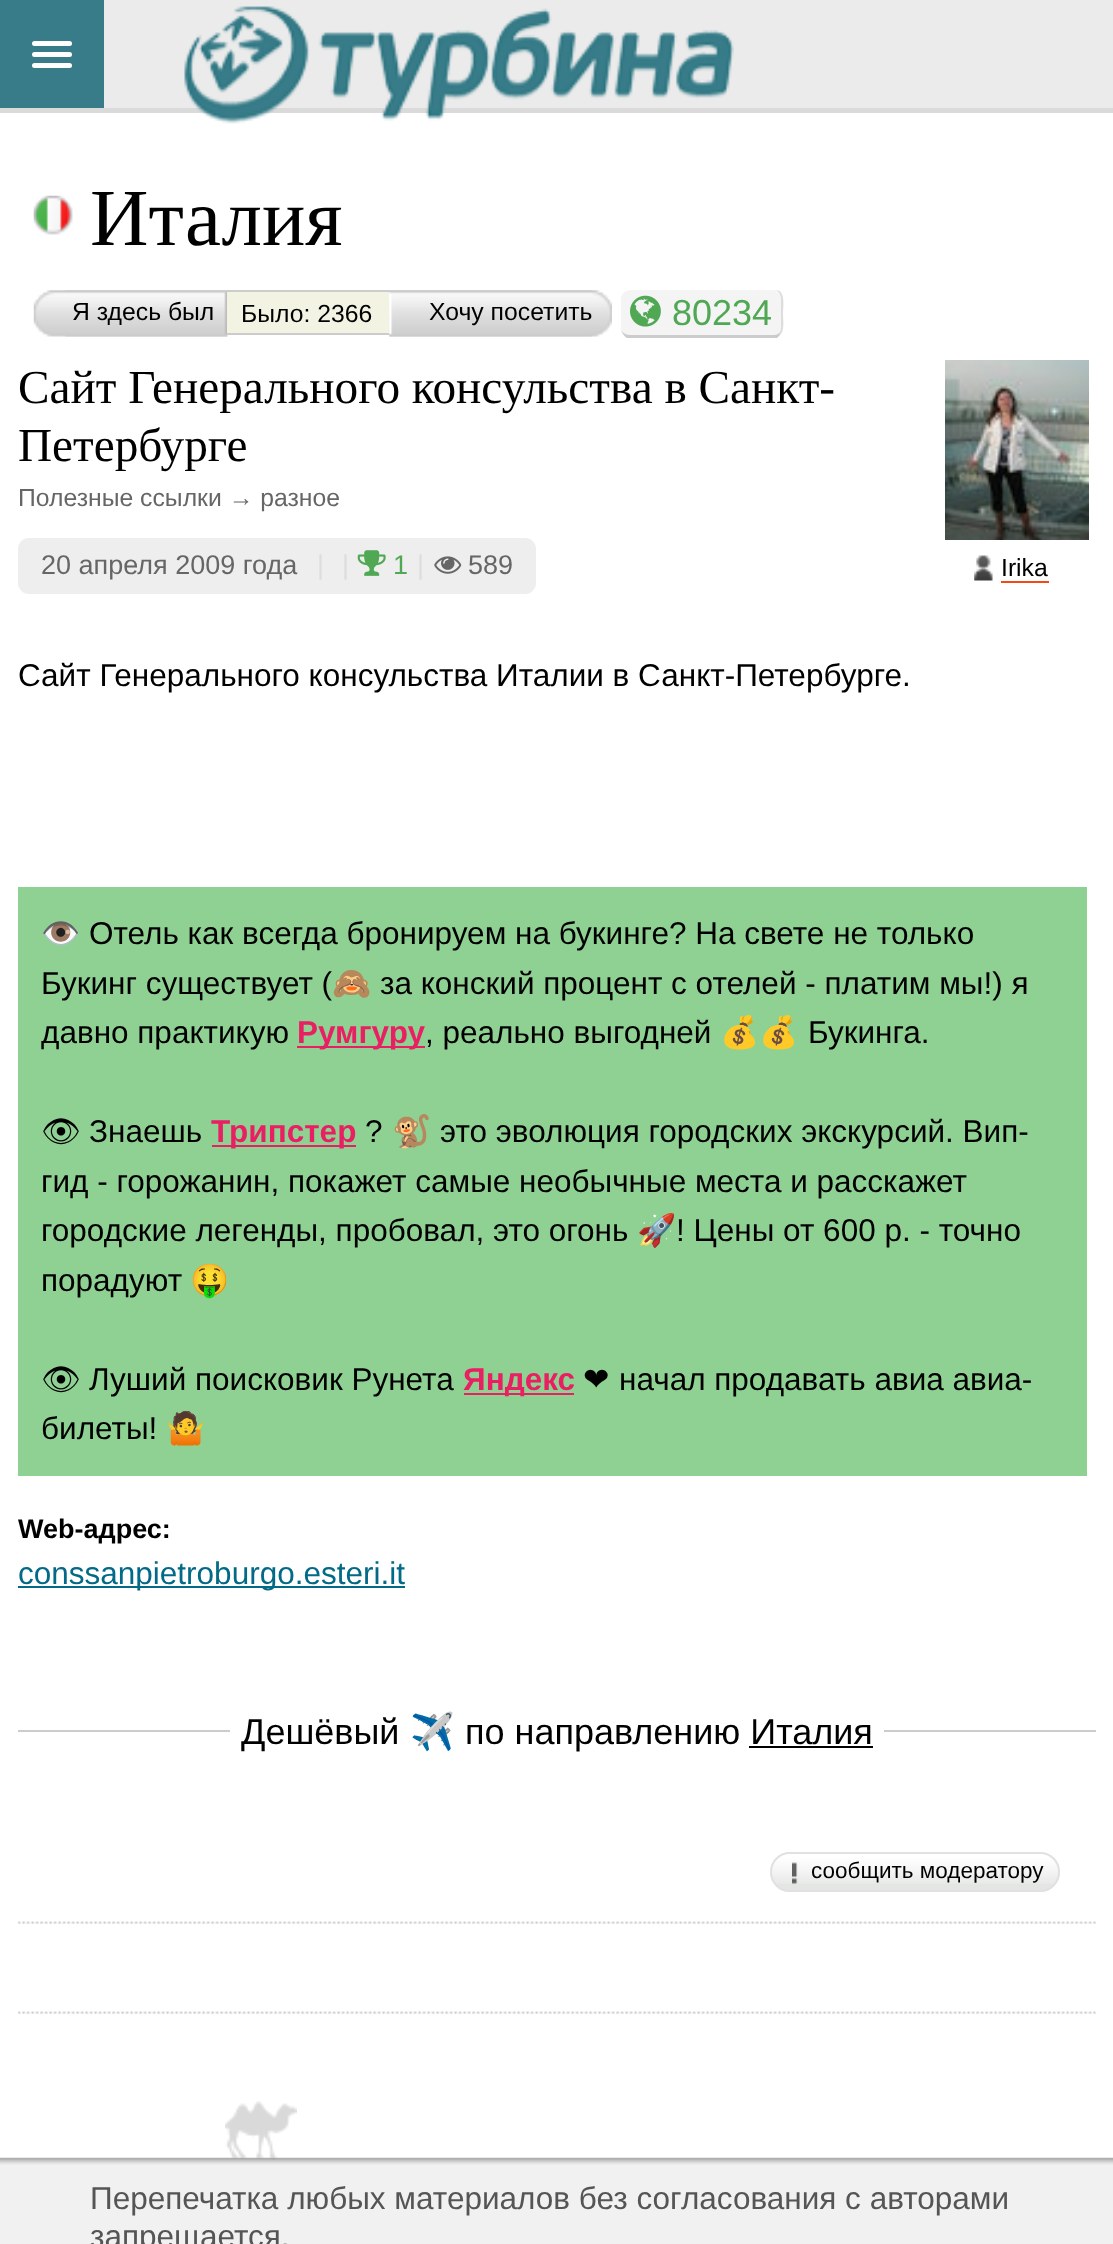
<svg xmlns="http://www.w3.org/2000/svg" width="1113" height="2244">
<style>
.a{font:81px Liberation Serif;fill:#000}
.b{font:24.75px Liberation Sans;fill:#000}
.c{font:36px Liberation Sans;fill:#51a854}
.d{font:47.25px Liberation Serif;fill:#000}
.e{font:24.75px Liberation Sans;fill:#666}
.f{font:27px Liberation Sans;fill:#666}
.g{font:27px Liberation Sans;fill:#ddd}
.h{font:27px Liberation Sans;fill:#51a854}
.i{font:31.5px Liberation Sans;fill:#000}
.j{font:31.5px Noto Color Emoji;fill:#000}
.k{font:bold 31.5px Liberation Sans;fill:#e91e63}
.l{font:31.5px Noto Emoji;fill:#000}
.m{font:31.5px DejaVu Sans;fill:#000}
.n{font:bold 27px Liberation Sans;fill:#000}
.o{font:31.5px Liberation Sans;fill:#026987}
.p{font:36px Liberation Sans;fill:#000}
.q{font:36px Noto Color Emoji;fill:#000}
.r{font:22.5px Liberation Sans;fill:#000}
.s{font:31.5px Liberation Sans;fill:#555}
</style>
<rect width="100%" height="100%" fill="#fff"/>
<path fill="#ecebeb" d="M104 0h1009v108H104z"/>
<path fill="#dadada" d="M0 108h1113v5H0z"/>
<path fill="#377c88" d="M0 0h104v108H0z"/>
<rect fill="#fff" x="32" y="41" width="40" height="5" rx="2.5"/>
<rect fill="#fff" x="32" y="52" width="40" height="5" rx="2.5"/>
<rect fill="#fff" x="32" y="63" width="40" height="5" rx="2.5"/>
<image href="1.png" x="184" y="6" width="550" height="118"/>
<image href="2.png" x="33" y="195" width="40" height="40"/>
<image href="3.png" x="33" y="290" width="195" height="47"/>
<image href="4.png" x="65" y="290" width="163" height="47"/>
<path fill="#f2f3e3" d="M227 292h162v41H227z"/>
<path fill="#ccc" d="M227 290h162v2H227z"/>
<path fill="#ccc" d="M227 333h162v2H227z"/>
<image href="5.png" x="389" y="290" width="223" height="47"/>
<image href="6.png" x="389" y="290" width="203" height="47"/>
<rect fill="#f4f4f4" x="621" y="290" width="162" height="48" rx="9"/>
<path fill="#ddd" d="M779 333c1-1 2-3 2-5v-29c0-4-2-8-5-9c10 0 7 18 7 24c0 6 2 16-3 21z"/>
<path fill="#ccc" d="M627 338c-3-2-6-6-6-10c0 4 4 7 9 7h144c2 0 4-1 5-2l1 2l-3 3z"/>
<image href="7.png" x="630" y="295" width="31" height="32"/>
<rect fill="#eee" x="18" y="538" width="518" height="56" rx="11"/>
<image href="8.png" x="357" y="550" width="29" height="26"/>
<image href="9.png" x="434" y="556" width="28" height="18"/>
<image href="10.png" x="945" y="360" width="144" height="180"/>
<image href="11.png" x="974" y="555" width="19" height="26"/>
<path fill="#f34915" d="M1001 581h48v2H1001z"/>
<path fill="#8fd192" d="M18 887h1069v589H18z"/>
<path fill="#e91e63" d="M297 1046h128v2H297z"/>
<path fill="#e91e63" d="M212 1145h144v2H212z"/>
<path fill="#e91e63" d="M464 1393h110v2H464z"/>
<path fill="#026987" d="M18 1586h387v2H18z"/>
<path fill="#ccc" d="M18 1730h1078v2H18z"/>
<path fill="#fff" d="M230 1730h654v2H230z"/>
<path fill="#000" d="M749 1746h124v2H749z"/>
<image href="12.png" x="18" y="1921" width="1078" height="3"/>
<rect fill="#e4e6e4" x="770" y="1852" width="290" height="40" rx="20"/>
<image href="13.png" x="770" y="1854" width="290" height="30"/>
<rect fill="none" stroke="#e1e1e1" stroke-width="2" x="771" y="1853" width="288" height="38" rx="19"/>
<image href="14.png" x="792" y="1862" width="6" height="22"/>
<image href="12.png" x="18" y="2011" width="1078" height="3"/>
<path fill="#f1f1f1" d="M0 2165h1113v79H0z"/>
<image href="15.png" x="0" y="2157" width="1113" height="8"/>
<image href="16.png" x="225" y="2101" width="72" height="59"/>
<text class="a" x="90" y="245">Италия</text>
<text class="b" x="72" y="320">Я здесь был</text>
<text class="b" x="241" y="322">Было: 2366</text>
<text class="b" x="429" y="320">Хочу посетить</text>
<text class="c" x="672" y="325">80234</text>
<text class="d" x="18" y="403">Сайт Генерального консульства в Санкт-</text>
<text class="d" x="18" y="461">Петербурге</text>
<text class="e" x="18" y="506">Полезные ссылки → разное</text>
<text class="f" x="41" y="574">20 апреля 2009 года</text>
<text class="g" x="317" y="574">|</text>
<text class="g" x="342" y="574">|</text>
<text class="h" x="393" y="574">1</text>
<text class="g" x="417" y="574">|</text>
<text class="f" x="468" y="574">589</text>
<text class="b" x="1001" y="576">Irika</text>
<text class="i" x="18" y="686">Сайт Генерального консульства Италии в Санкт-Петербурге.</text>
<text class="j" x="41" y="944">👁</text>
<text class="i" x="89" y="944">Отель как всегда бронируем на букинге? На свете не только</text>
<text class="i" x="41" y="994">Букинг существует (</text>
<text class="j" x="332" y="994">🙈</text>
<text class="i" x="380" y="994">за конский процент с отелей - платим мы!) я</text>
<text class="i" x="41" y="1043">давно практикую</text>
<text class="k" x="297" y="1043">Румгуру</text>
<text class="i" x="425" y="1043">, реально выгодней</text>
<text class="j" x="720" y="1043">💰💰</text>
<text class="i" x="808" y="1043">Букинга.</text>
<text class="l" x="41" y="1142">👁</text>
<text class="i" x="89" y="1142">Знаешь</text>
<text class="k" x="211" y="1142">Трипстер</text>
<text class="i" x="365" y="1142">?</text>
<text class="j" x="392" y="1142">🐒</text>
<text class="i" x="440" y="1142">это эволюция городских экскурсий. Вип-</text>
<text class="i" x="41" y="1192">гид - горожанин, покажет самые необычные места и расскажет</text>
<text class="i" x="41" y="1241">городские легенды, пробовал, это огонь</text>
<text class="j" x="637" y="1241">🚀</text>
<text class="i" x="676" y="1241">! Цены от 600 р. - точно</text>
<text class="i" x="41" y="1291">порадуют</text>
<text class="j" x="190" y="1291">🤑</text>
<text class="l" x="41" y="1390">👁</text>
<text class="i" x="89" y="1390">Луший поисковик Рунета</text>
<text class="k" x="463" y="1390">Яндекс</text>
<text class="m" x="583" y="1390">❤</text>
<text class="i" x="619" y="1390">начал продавать авиа авиа-</text>
<text class="i" x="41" y="1439">билеты!</text>
<text class="j" x="166" y="1439">🤷</text>
<text class="n" x="18" y="1538">Web-адрес:</text>
<text class="o" x="18" y="1584">conssanpietroburgo.esteri.it</text>
<text class="p" x="241" y="1744">Дешёвый</text>
<text class="q" x="410" y="1744">✈️</text>
<text class="p" x="465" y="1744">по направлению Италия</text>
<text class="r" x="811" y="1878">сообщить модератору</text>
<text class="s" x="90" y="2209">Перепечатка любых материалов без согласования с авторами</text>
<text class="s" x="90" y="2247">запрещается.</text>
</svg>
